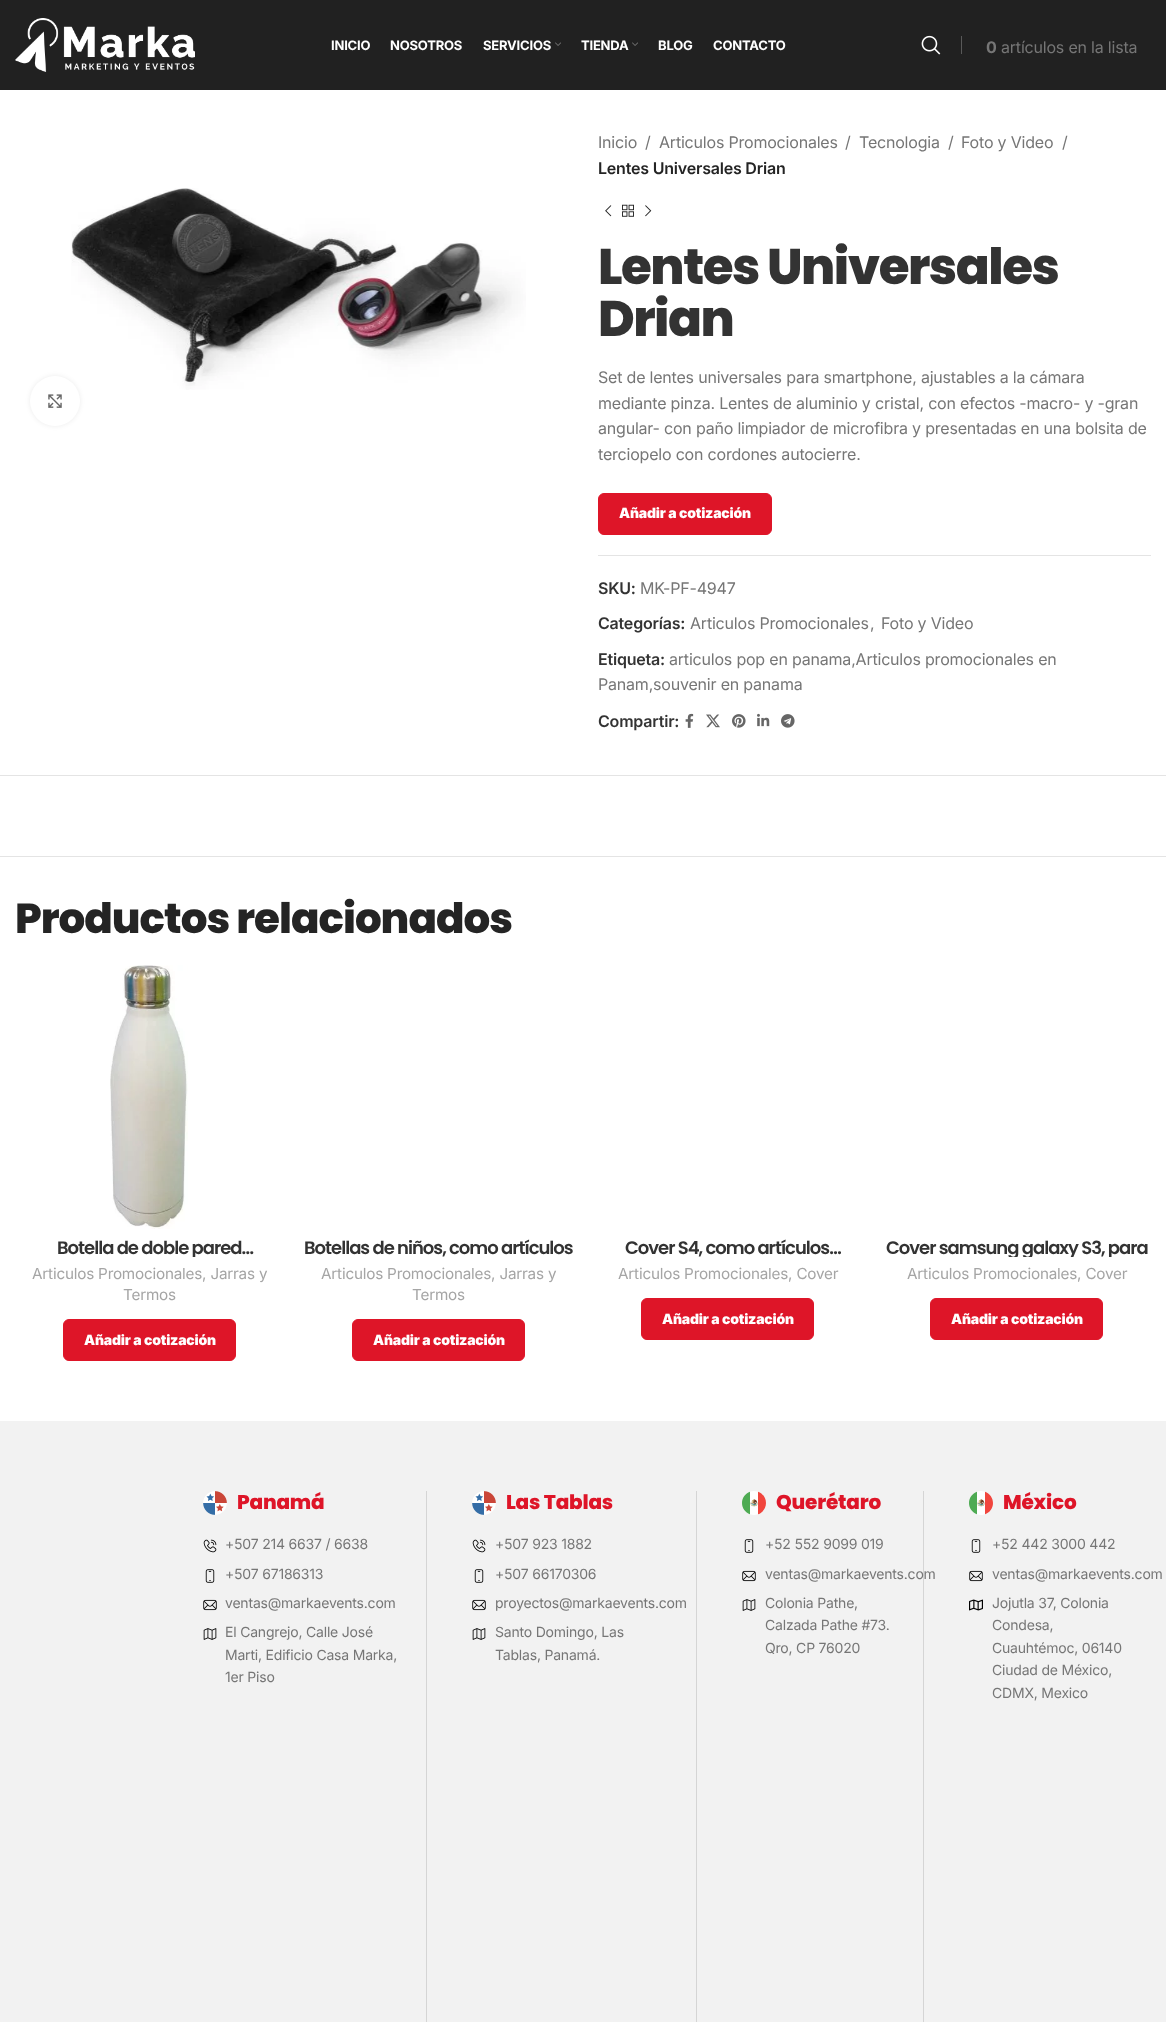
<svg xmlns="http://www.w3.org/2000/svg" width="1166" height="2022">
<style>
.a{font:bold 13px Inter;letter-spacing:-0.2px;fill:#fff}
.b{font:bold 16px Inter;letter-spacing:-0.2px;fill:#767676}
.c{font:16px Inter;letter-spacing:-0.2px;fill:#767676}
.d{font:600 16px Inter;letter-spacing:-0.2px;fill:#242424}
.e{font:800 50px Poppins;letter-spacing:-1.5px;fill:#333}
.f{font:900 14px Inter;letter-spacing:-0.2px;fill:#fff}
.g{font:600 16px Inter;letter-spacing:-0.2px;fill:#333}
.h{font:800 42px Poppins;letter-spacing:-1px;fill:#242424}
.i{font:600 18px Poppins;letter-spacing:-1px;fill:#333}
.j{font:15.25px Inter;letter-spacing:-0.2px;fill:#a5a5a5}
.k{font:800 20px Poppins;letter-spacing:-0.2px;fill:#de1528}
.l{font:14px Inter;letter-spacing:-0.2px;fill:#767676}
</style>
<defs>
<clipPath id="clip1"><path d="M15 1238h269v19H15z"/></clipPath>
<clipPath id="clip2"><path d="M882 1238h269v19H882z"/></clipPath>
</defs>
<rect width="100%" height="100%" fill="#fff"/>
<path fill="#212121" d="M0 0h1166v90H0z"/>
<image href="1.png" x="15" y="18" width="180" height="54"/>
<image href="2.png" x="555" y="42" width="6" height="4"/>
<image href="2.png" x="632" y="42" width="6" height="4"/>
<image href="3.png" x="921" y="35" width="20" height="20"/>
<path fill="#595959" d="M961 36h1v18H961z"/>
<image href="4.png" x="71" y="188" width="455" height="202"/>
<rect fill="#00000014" filter="blur(2.5px)" x="30" y="376" width="50" height="50" rx="25"/>
<circle fill="#fff" cx="55" cy="401" r="25"/>
<image href="5.png" x="48" y="394" width="14" height="14"/>
<image href="6.png" x="605" y="205" width="7" height="12"/>
<image href="7.png" x="622" y="204" width="12" height="13"/>
<image href="8.png" x="645" y="205" width="7" height="12"/>
<rect fill="#de1528" stroke="#de1528" x="598.5" y="493.5" width="173" height="41" rx="5.5"/>
<path fill="#e4e4e4" d="M598 555h553v1H598z"/>
<image href="9.png" x="685" y="713" width="9" height="15"/>
<image href="10.png" x="706" y="714" width="14" height="14"/>
<image href="11.png" x="732" y="714" width="14" height="14"/>
<image href="12.png" x="757" y="713" width="13" height="14"/>
<image href="13.png" x="781" y="714" width="14" height="14"/>
<path fill="#e4e4e4" d="M0 775h1166v1H0z"/>
<path fill="#e4e4e4" d="M0 856h1166v1H0z"/>
<image href="14.png" x="110" y="965" width="78" height="264"/>
<rect fill="#de1528" stroke="#de1528" x="63.5" y="1319.5" width="172" height="41" rx="5.5"/>
<rect fill="#de1528" stroke="#de1528" x="352.5" y="1319.5" width="172" height="41" rx="5.5"/>
<rect fill="#de1528" stroke="#de1528" x="641.5" y="1298.5" width="172" height="41" rx="5.5"/>
<rect fill="#de1528" stroke="#de1528" x="930.5" y="1298.5" width="172" height="41" rx="5.5"/>
<path fill="#f2f2f2" d="M0 1421h1166v601H0z"/>
<path fill="#d5d5d5" d="M426 1491h1v531H426z"/>
<image href="15.png" x="203" y="1491" width="24" height="24"/>
<image href="16.png" x="203" y="1539" width="14" height="14"/>
<image href="17.png" x="205" y="1569" width="10" height="14"/>
<image href="18.png" x="203" y="1599" width="14" height="12"/>
<image href="19.png" x="203" y="1628" width="14" height="12"/>
<path fill="#d5d5d5" d="M696 1491h1v531H696z"/>
<image href="15.png" x="472" y="1491" width="24" height="24"/>
<image href="16.png" x="472" y="1539" width="14" height="14"/>
<image href="17.png" x="474" y="1569" width="10" height="14"/>
<image href="18.png" x="472" y="1599" width="14" height="12"/>
<image href="19.png" x="472" y="1628" width="14" height="12"/>
<path fill="#d5d5d5" d="M923 1491h1v531H923z"/>
<image href="20.png" x="742" y="1491" width="24" height="24"/>
<image href="17.png" x="744" y="1539" width="10" height="14"/>
<image href="18.png" x="742" y="1570" width="14" height="12"/>
<image href="19.png" x="742" y="1599" width="14" height="12"/>
<image href="21.png" x="969" y="1491" width="24" height="24"/>
<image href="17.png" x="971" y="1539" width="10" height="14"/>
<image href="18.png" x="969" y="1570" width="14" height="12"/>
<image href="22.png" x="969" y="1599" width="14" height="12"/>
<text class="a" x="331" y="50">INICIO</text>
<text class="a" x="390" y="50">NOSOTROS</text>
<text class="a" x="483" y="50">SERVICIOS</text>
<text class="a" x="581" y="50">TIENDA</text>
<text class="a" x="658" y="50">BLOG</text>
<text class="a" x="713" y="50">CONTACTO</text>
<text class="b" x="986" y="53">0</text>
<text class="c" x="1001" y="53">artículos en la lista</text>
<text class="c" x="598" y="148">Inicio</text>
<text class="c" x="645" y="148">/</text>
<text class="c" x="659" y="148">Articulos Promocionales</text>
<text class="c" x="845" y="148">/</text>
<text class="c" x="859" y="148">Tecnologia</text>
<text class="c" x="948" y="148">/</text>
<text class="c" x="961" y="148">Foto y Video</text>
<text class="c" x="1062" y="148">/</text>
<text class="d" x="598" y="174">Lentes Universales Drian</text>
<text class="e" x="598" y="284">Lentes Universales</text>
<text class="e" x="598" y="336">Drian</text>
<text class="c" x="598" y="383">Set de lentes universales para smartphone, ajustables a la cámara</text>
<text class="c" x="598" y="409">mediante pinza. Lentes de aluminio y cristal, con efectos -macro- y -gran</text>
<text class="c" x="598" y="434">angular- con paño limpiador de microfibra y presentadas en una bolsita de</text>
<text class="c" x="598" y="460">terciopelo con cordones autocierre.</text>
<text class="f" x="619" y="518">Añadir a cotización</text>
<text class="g" x="598" y="594">SKU:</text>
<text class="c" x="640" y="594">MK-PF-4947</text>
<text class="g" x="598" y="629">Categorías:</text>
<text class="c" x="690" y="629">Articulos Promocionales</text>
<text class="c" x="870" y="629">,</text>
<text class="c" x="881" y="629">Foto y Video</text>
<text class="g" x="598" y="665">Etiqueta:</text>
<text class="c" x="669" y="665">articulos pop en panama,Articulos promocionales en</text>
<text class="c" x="598" y="690">Panam,souvenir en panama</text>
<text class="g" x="598" y="727">Compartir:</text>
<text class="h" x="15" y="933">Productos relacionados</text>
<g clip-path="url(#clip1)">
<text class="i" x="57" y="1254">Botella de doble pared…</text>
</g>
<text class="j" x="32" y="1279">Articulos Promocionales, Jarras y</text>
<text class="j" x="123" y="1300">Termos</text>
<text class="f" x="84" y="1345">Añadir a cotización</text>
<text class="i" x="304" y="1254">Botellas de niños, como artículos</text>
<text class="j" x="321" y="1279">Articulos Promocionales, Jarras y</text>
<text class="j" x="412" y="1300">Termos</text>
<text class="f" x="373" y="1345">Añadir a cotización</text>
<text class="i" x="625" y="1254">Cover S4, como artículos…</text>
<text class="j" x="618" y="1279">Articulos Promocionales, Cover</text>
<text class="f" x="662" y="1324">Añadir a cotización</text>
<g clip-path="url(#clip2)">
<text class="i" x="886" y="1254">Cover samsung galaxy S3, para</text>
</g>
<text class="j" x="907" y="1279">Articulos Promocionales, Cover</text>
<text class="f" x="951" y="1324">Añadir a cotización</text>
<text class="k" x="237" y="1509">Panamá</text>
<text class="l" x="225" y="1549">+507 214 6637 / 6638</text>
<text class="l" x="225" y="1579">+507 67186313</text>
<text class="l" x="225" y="1608">ventas@markaevents.com</text>
<text class="l" x="225" y="1637">El Cangrejo, Calle José</text>
<text class="l" x="225" y="1660">Marti, Edificio Casa Marka,</text>
<text class="l" x="225" y="1682">1er Piso</text>
<text class="k" x="506" y="1509">Las Tablas</text>
<text class="l" x="495" y="1549">+507 923 1882</text>
<text class="l" x="495" y="1579">+507 66170306</text>
<text class="l" x="495" y="1608">proyectos@markaevents.com</text>
<text class="l" x="495" y="1637">Santo Domingo, Las</text>
<text class="l" x="495" y="1660">Tablas, Panamá.</text>
<text class="k" x="776" y="1509">Querétaro</text>
<text class="l" x="765" y="1549">+52 552 9099 019</text>
<text class="l" x="765" y="1579">ventas@markaevents.com</text>
<text class="l" x="765" y="1608">Colonia Pathe,</text>
<text class="l" x="765" y="1630">Calzada Pathe #73.</text>
<text class="l" x="765" y="1653">Qro, CP 76020</text>
<text class="k" x="1003" y="1509">México</text>
<text class="l" x="992" y="1549">+52 442 3000 442</text>
<text class="l" x="992" y="1579">ventas@markaevents.com</text>
<text class="l" x="992" y="1608">Jojutla 37, Colonia</text>
<text class="l" x="992" y="1630">Condesa,</text>
<text class="l" x="992" y="1653">Cuauhtémoc, 06140</text>
<text class="l" x="992" y="1675">Ciudad de México,</text>
<text class="l" x="992" y="1698">CDMX, Mexico</text>
</svg>
